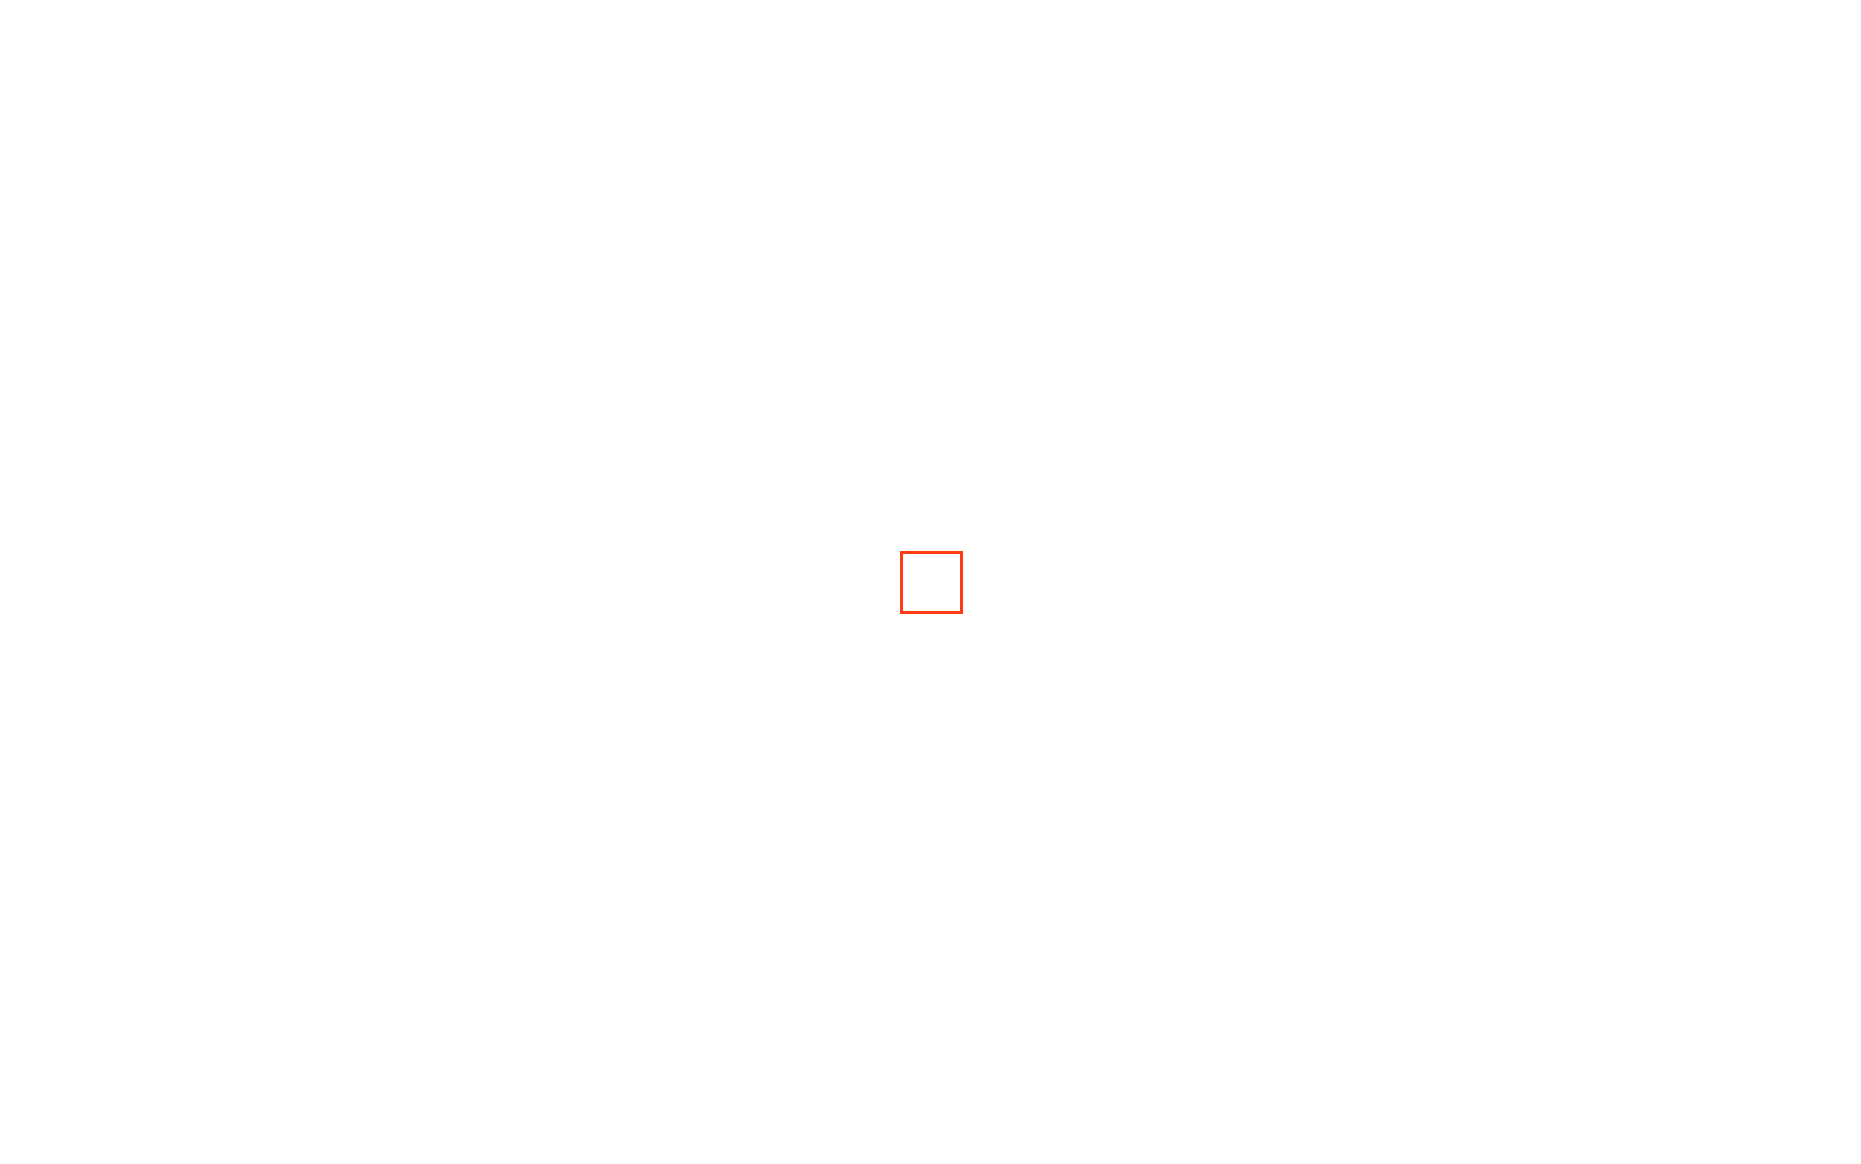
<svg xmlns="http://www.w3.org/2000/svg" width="1861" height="1164">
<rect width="100%" height="100%" fill="#fff"/>
<path fill="none" stroke="#ff3b12" stroke-width="3" d="M901.5 552.5h60v60H901.5z"/>
</svg>
